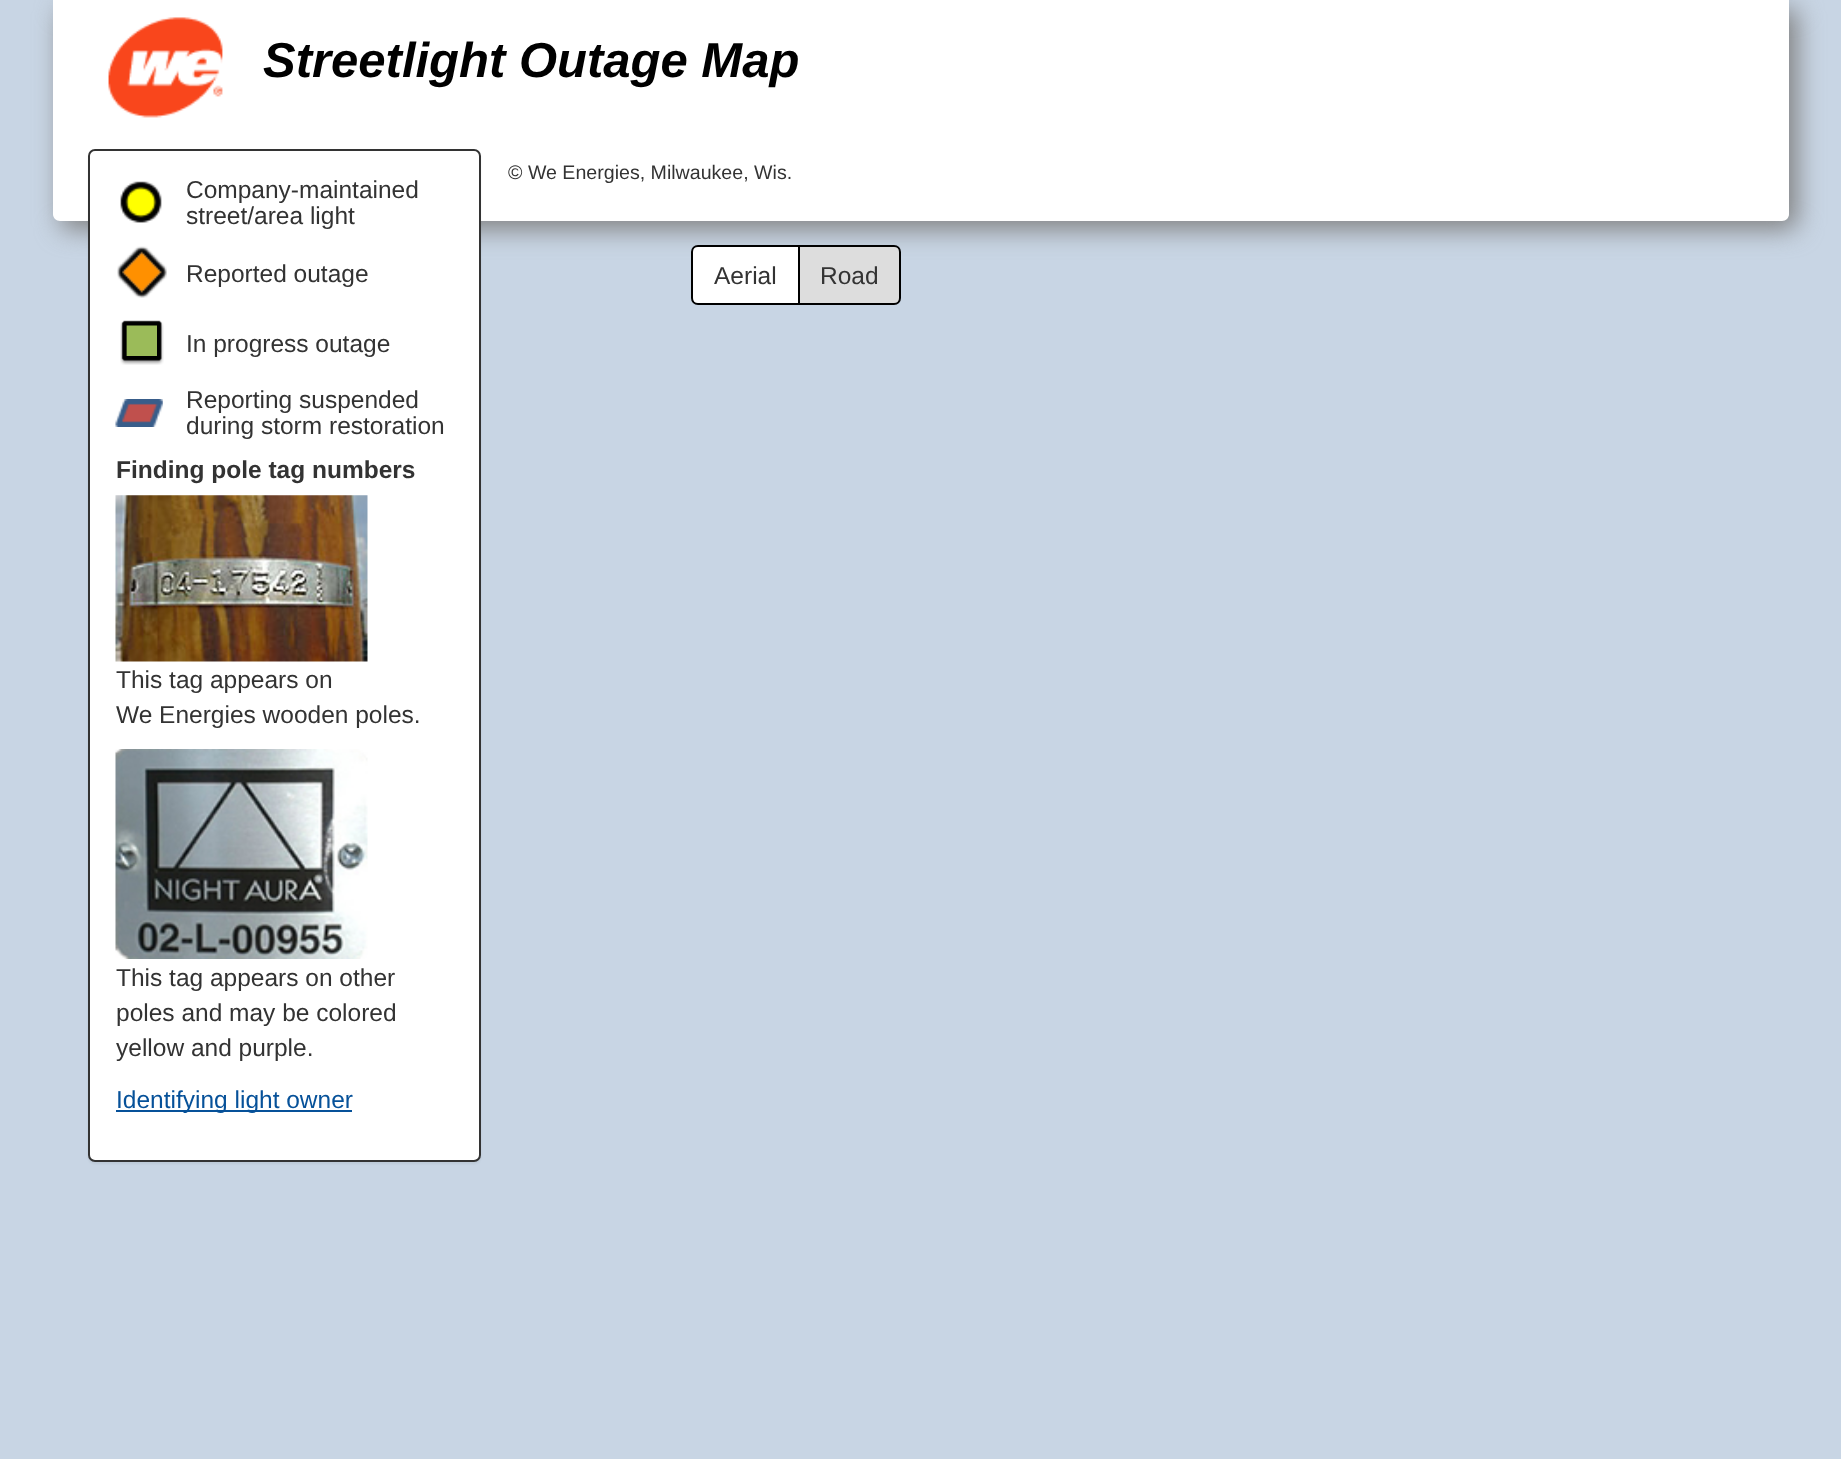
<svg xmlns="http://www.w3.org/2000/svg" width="1841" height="1459">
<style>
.a{font:italic bold 49px Liberation Sans;fill:#000}
.b{font:24.5px Liberation Sans;fill:#333}
.c{font:bold 24.5px Liberation Sans;fill:#333}
.d{font:24.5px Liberation Sans;fill:#065199}
.e{font:19.6px Liberation Sans;fill:#333}
</style>
<rect width="100%" height="100%" fill="#c8d5e4"/>
<rect fill="#808080" filter="blur(13px)" x="61" y="9" width="1736" height="220" rx="7"/>
<path fill="#fff" d="M53 0h1736v214c0 4-3 7-7 7h-1722c-4 0-7-3-7-7z"/>
<image href="1.png" x="108" y="17" width="115" height="101"/>
<rect fill="#0000000d" filter="blur(1px)" x="88" y="151" width="393" height="1013" rx="7"/>
<rect fill="#fff" stroke="#333" stroke-width="2" x="89" y="150" width="391" height="1011" rx="6"/>
<image href="2.png" x="120" y="181" width="42" height="42"/>
<image href="3.png" x="117" y="246" width="50" height="52"/>
<image href="4.png" x="120" y="320" width="44" height="45"/>
<image href="5.png" x="115" y="399" width="48" height="28"/>
<image href="6.png" x="115" y="495" width="253" height="167"/>
<image href="7.png" x="115" y="749" width="253" height="210"/>
<path fill="#065199" d="M116 1110h236v2H116z"/>
<path fill="#fff" stroke="#000" stroke-width="2" d="M698 246h101v58h-101c-3.5 0-6-2.5-6-6v-46c0-3.5 2.5-6 6-6z"/>
<path fill="#ddd" stroke="#000" stroke-width="2" d="M799 246h95c3.5 0 6 2.5 6 6v46c0 3.5-2.5 6-6 6h-95z"/>
<text class="a" x="263" y="77">Streetlight Outage Map</text>
<text class="b" x="186" y="198">Company-maintained</text>
<text class="b" x="186" y="224">street/area light</text>
<text class="b" x="186" y="282">Reported outage</text>
<text class="b" x="186" y="352">In progress outage</text>
<text class="b" x="186" y="408">Reporting suspended</text>
<text class="b" x="186" y="434">during storm restoration</text>
<text class="c" x="116" y="478">Finding pole tag numbers</text>
<text class="b" x="116" y="688">This tag appears on</text>
<text class="b" x="116" y="723">We Energies wooden poles.</text>
<text class="b" x="116" y="986">This tag appears on other</text>
<text class="b" x="116" y="1021">poles and may be colored</text>
<text class="b" x="116" y="1056">yellow and purple.</text>
<text class="d" x="116" y="1108">Identifying light owner</text>
<text class="e" x="508" y="179">© We Energies, Milwaukee, Wis.</text>
<text class="b" x="714" y="284">Aerial</text>
<text class="b" x="820" y="284">Road</text>
</svg>
